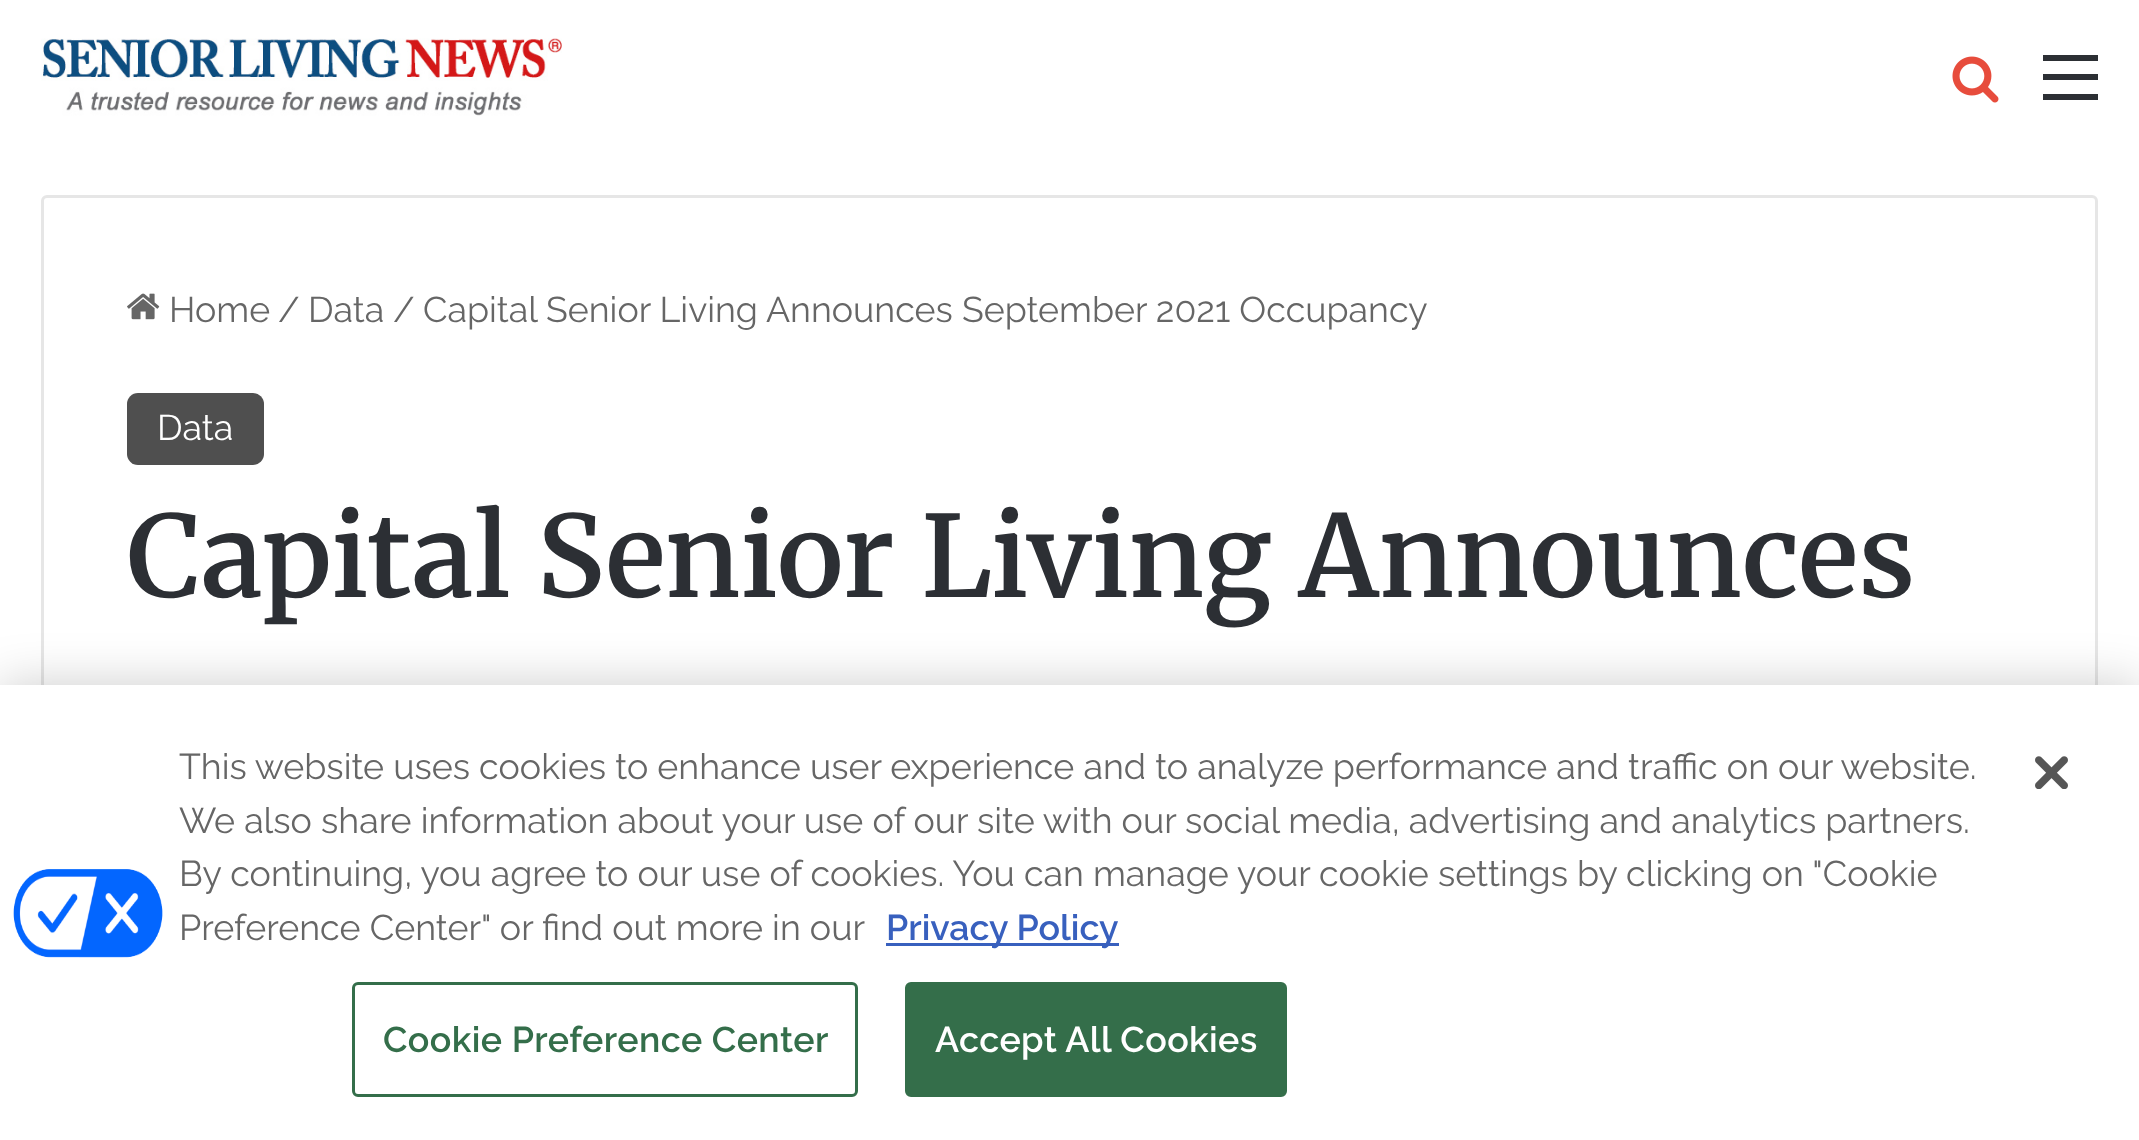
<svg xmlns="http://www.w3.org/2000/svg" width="2139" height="1140">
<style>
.a{font:35.75px Raleway;fill:#666}
.b{font:35.75px Raleway;fill:#fff}
.c{font:600 112.75px Merriweather;fill:#2c2f34}
.d{font:35.77px Raleway;fill:#666}
.e{font:600 35.77px Raleway;fill:#3860be}
.f{font:600 35.77px Raleway;letter-spacing:0.4px;fill:#346e4a}
.g{font:600 35.77px Raleway;letter-spacing:0.4px;fill:#fff}
</style>
<rect width="100%" height="100%" fill="#fff"/>
<image href="1.png" x="41" y="38" width="521" height="78"/>
<image href="2.png" x="1952" y="56" width="47" height="47"/>
<path fill="#2c2f34" d="M2043 74h55v6H2043z"/>
<path fill="#2c2f34" d="M2043 55h55v6H2043z"/>
<path fill="#2c2f34" d="M2043 94h55v6H2043z"/>
<rect fill="none" stroke="#e6e6e6" stroke-width="3" x="42.5" y="196.5" width="2054" height="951" rx="4.5"/>
<image href="3.png" x="127" y="293" width="33" height="27"/>
<rect fill="#4f4f4f" x="127" y="393" width="137" height="72" rx="11"/>
<path fill="#00000033" filter="blur(25px)" d="M0 685h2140v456H0z"/>
<path fill="#fff" d="M0 685h2139v455H0z"/>
<image href="4.png" x="13" y="869" width="150" height="89"/>
<path fill="#3860be" d="M886 943h233v3H886z"/>
<rect fill="none" stroke="#346e4a" stroke-width="3" x="353.5" y="983.5" width="503" height="112" rx="4.5"/>
<rect fill="#346e4a" stroke="#346e4a" stroke-width="3" x="906.5" y="983.5" width="379" height="112" rx="4.5"/>
<image href="5.png" x="2035" y="756" width="33" height="33"/>
<text class="a" x="169" y="322">Home</text>
<text class="a" x="278" y="322">/</text>
<text class="a" x="308" y="322">Data</text>
<text class="a" x="393" y="322">/</text>
<text class="a" x="423" y="322">Capital Senior Living Announces September 2021 Occupancy</text>
<text class="b" x="157" y="440">Data</text>
<text class="c" x="127" y="597">Capital Senior Living Announces</text>
<text class="d" x="179" y="779">This website uses cookies to enhance user experience and to analyze performance and traffic on our website.</text>
<text class="d" x="179" y="833">We also share information about your use of our site with our social media, advertising and analytics partners.</text>
<text class="d" x="179" y="886">By continuing, you agree to our use of cookies. You can manage your cookie settings by clicking on "Cookie</text>
<text class="d" x="179" y="940">Preference Center" or find out more in our</text>
<text class="e" x="886" y="940">Privacy Policy</text>
<text class="f" x="383" y="1052">Cookie Preference Center</text>
<text class="g" x="935" y="1052">Accept All Cookies</text>
</svg>
